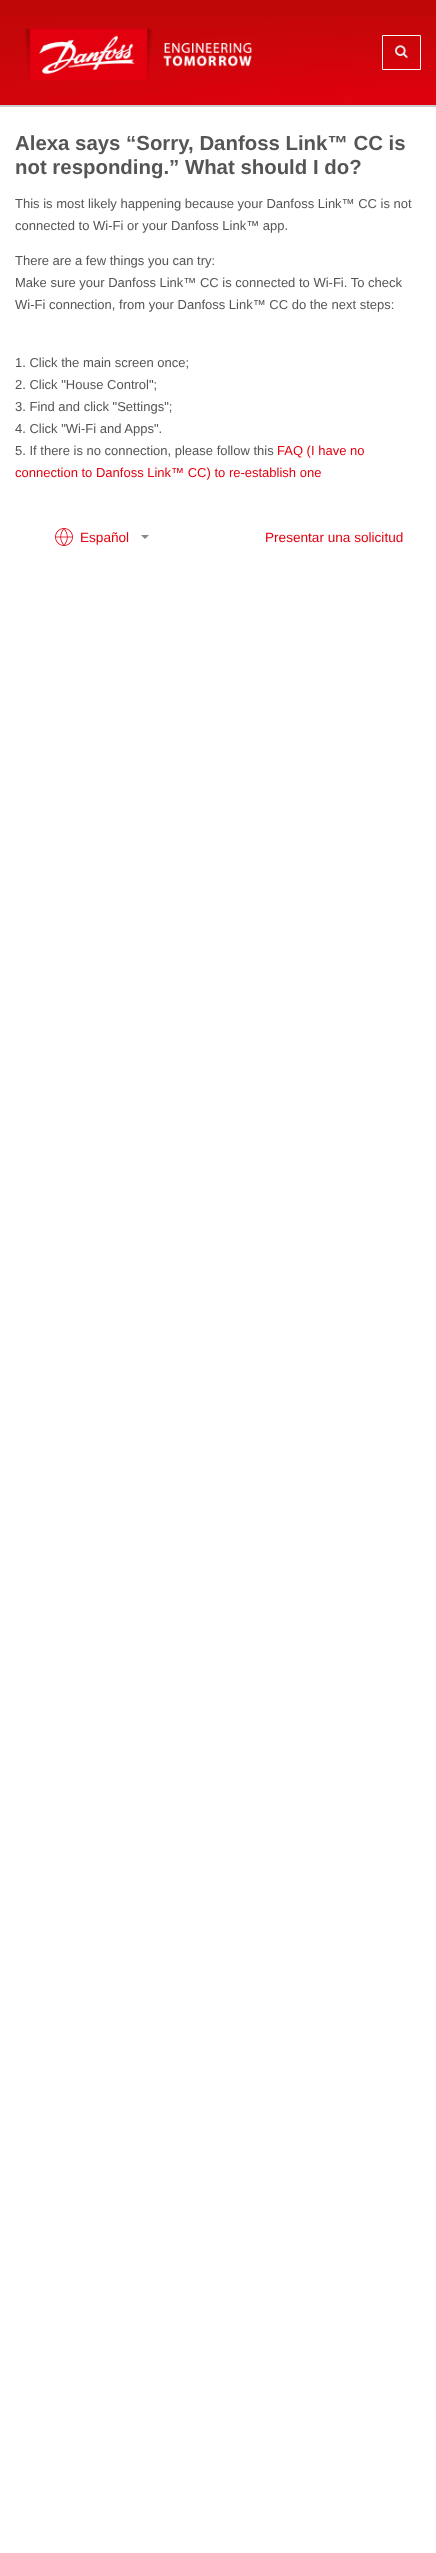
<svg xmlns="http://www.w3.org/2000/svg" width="436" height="2553">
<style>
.a{font:bold 20.4px Liberation Sans;fill:#555}
.b{font:13px Liberation Sans;fill:#555}
.c{font:13px Liberation Sans;fill:#e3000f}
.d{font:13.6px Liberation Sans;fill:#e3000f}
</style>
<rect width="100%" height="100%" fill="#fff"/>
<path fill="#c00708" d="M0 0h436v16H0z"/>
<image href="1.png" x="0" y="16" width="436" height="89"/>
<path fill="#ccc" d="M0 105h436v2H0z"/>
<image href="2.png" x="24" y="28" width="228" height="52"/>
<path fill="none" stroke="#f8f9fa" d="M382.5 35.5h38v34H382.5z"/>
<image href="3.png" x="395" y="45" width="13" height="13"/>
<image href="4.png" x="55" y="528" width="18" height="18"/>
<path fill="#888" d="M141 535h8l-4 4z"/>
<text class="a" x="15" y="150">Alexa says “Sorry, Danfoss Link™ CC is</text>
<text class="a" x="15" y="174">not responding.” What should I do?</text>
<text class="b" x="15" y="208">This is most likely happening because your Danfoss Link™ CC is not</text>
<text class="b" x="15" y="230">connected to Wi-Fi or your Danfoss Link™ app.</text>
<text class="b" x="15" y="265">There are a few things you can try:</text>
<text class="b" x="15" y="287">Make sure your Danfoss Link™ CC is connected to Wi-Fi. To check</text>
<text class="b" x="15" y="309">Wi-Fi connection, from your Danfoss Link™ CC do the next steps:</text>
<text class="b" x="15" y="367">1. Click the main screen once;</text>
<text class="b" x="15" y="389">2. Click "House Control";</text>
<text class="b" x="15" y="411">3. Find and click "Settings";</text>
<text class="b" x="15" y="433">4. Click "Wi-Fi and Apps".</text>
<text class="b" x="15" y="455">5. If there is no connection, please follow this</text>
<text class="c" x="277" y="455">FAQ (I have no</text>
<text class="c" x="15" y="477">connection to Danfoss Link™ CC) to re-establish one</text>
<text class="d" x="80" y="542">Español</text>
<text class="d" x="265" y="542">Presentar una solicitud</text>
</svg>
